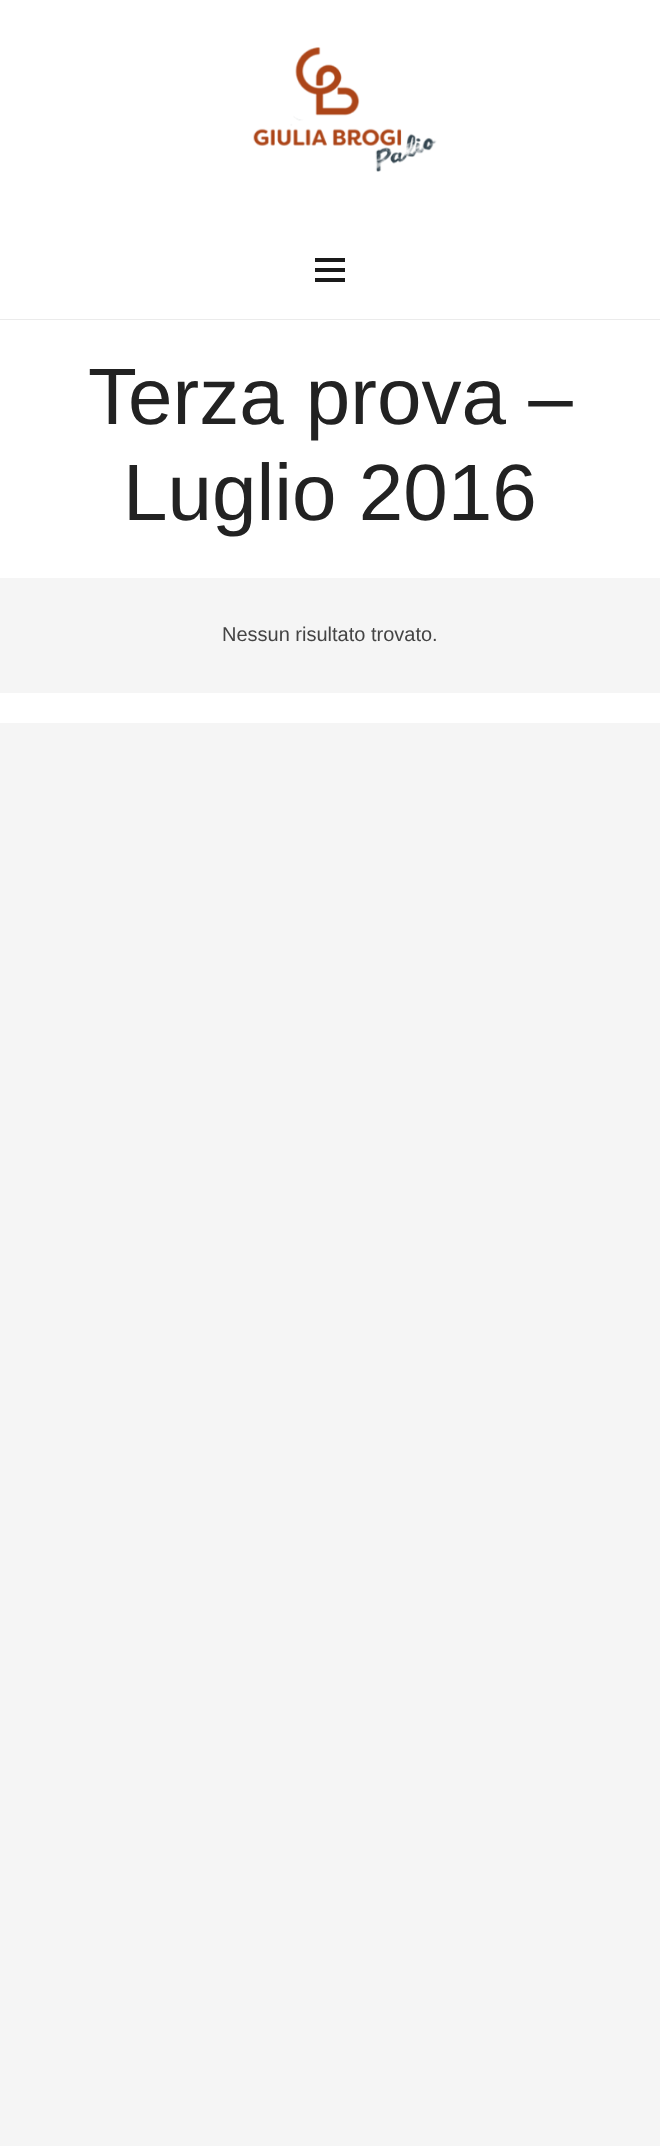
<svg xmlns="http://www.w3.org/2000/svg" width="660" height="2146">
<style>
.a{font:80px Liberation Sans;fill:#222}
.b{font:20px Liberation Sans;fill:#444}
</style>
<rect width="100%" height="100%" fill="#f5f5f5"/>
<path fill="#fff" d="M0 0h660v723H0z"/>
<image href="1.png" x="253" y="47" width="184" height="125"/>
<path fill="#ebebeb" d="M0 319h660v1H0z"/>
<path fill="#1a1a1a" d="M315 268h30v4H315z"/>
<path fill="#1a1a1a" d="M315 258h30v4H315z"/>
<path fill="#1a1a1a" d="M315 278h30v4H315z"/>
<path fill="#f5f5f5" d="M0 578h660v115H0z"/>
<text class="a" x="88" y="424">Terza prova –</text>
<text class="a" x="123" y="520">Luglio 2016</text>
<text class="b" x="222" y="641">Nessun risultato trovato.</text>
</svg>
